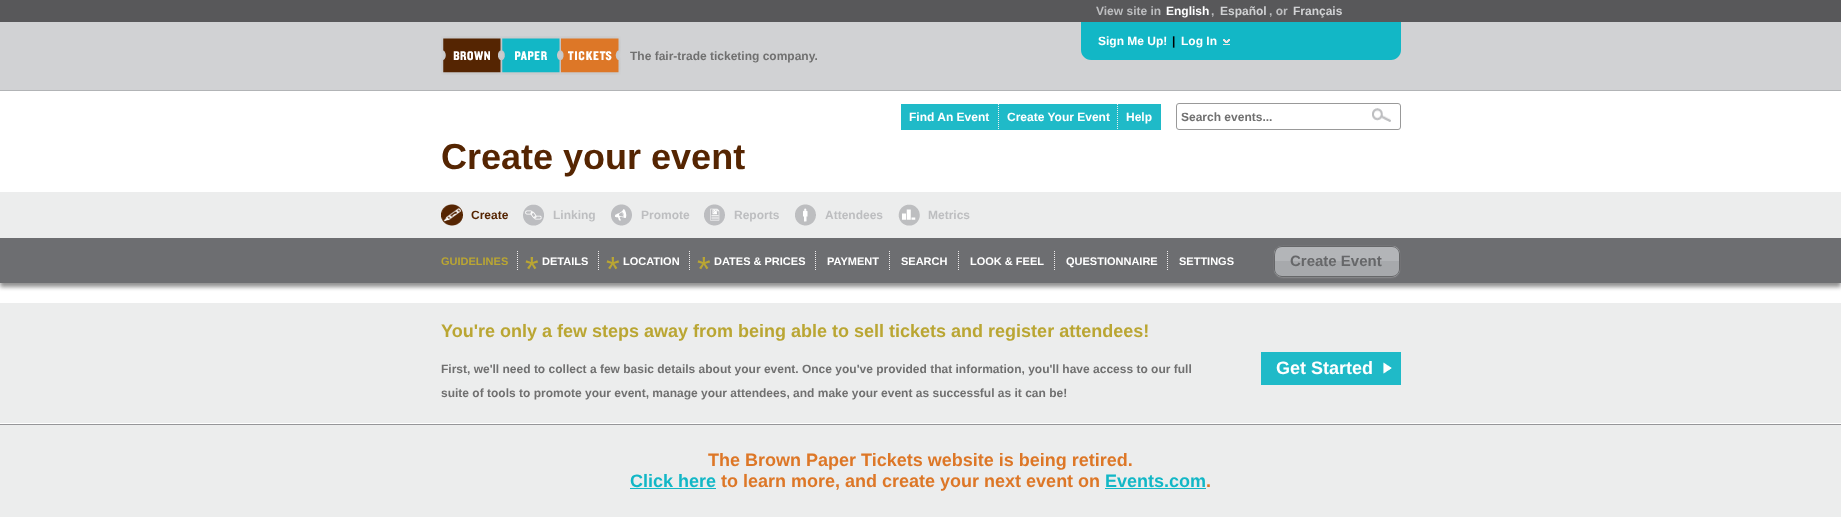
<svg xmlns="http://www.w3.org/2000/svg" width="1841" height="517">
<style>
.a{font:bold 12px Liberation Sans;fill:#bdbec0}
.b{font:bold 12px Liberation Sans;fill:#fff}
.c{font:bold 12px Liberation Sans;fill:#d1d2d4}
.d{font:bold 12px Liberation Sans;fill:#000}
.e{font:bold 12px Liberation Sans;fill:#707070}
.f{font:bold 36px Liberation Sans;fill:#552502}
.g{font:bold 12px Liberation Sans;fill:#552502}
.h{font:bold 11px Liberation Sans;fill:#baa633}
.i{font:35px Liberation Sans;fill:#baa633}
.j{font:bold 11px Liberation Sans;fill:#fff}
.k{font:bold 15px Liberation Sans;fill:#666769}
.l{font:bold 18px Liberation Sans;fill:#baa633}
.m{font:bold 18px Liberation Sans;fill:#fff}
.n{font:bold 18px Liberation Sans;fill:#dd7727}
.o{font:bold 18px Liberation Sans;fill:#12b7c6}
</style>
<rect width="100%" height="100%" fill="#58585a"/>
<path fill="#d1d2d4" d="M0 22h1841v68H0z"/>
<path fill="#b2b4b6" d="M0 90h1841v1H0z"/>
<image href="1.png" x="441" y="36" width="180" height="39"/>
<path fill="#12b7c6" d="M1081 22h320v28c0 5.5-4.5 10-10 10h-300c-5.5 0-10-4.5-10-10z"/>
<image href="2.png" x="1223" y="39" width="7" height="6"/>
<path fill="#fff" d="M0 91h1841v333H0z"/>
<path fill="#1fbac8" d="M901 104h260v26H901z"/>
<path fill="none" stroke="#efefef" stroke-dasharray="1 1" d="M998.5 104v26"/>
<path fill="none" stroke="#efefef" stroke-dasharray="1 1" d="M1117.5 104v26"/>
<rect fill="none" stroke="#999" x="1176.5" y="103.5" width="224" height="26" rx="2.5"/>
<image href="3.png" x="1372" y="108" width="19" height="14"/>
<path fill="#909090" filter="blur(2px)" d="M0 242h1841v45H0z"/>
<path fill="#eceded" d="M0 192h1841v46H0z"/>
<image href="4.png" x="441" y="204" width="22" height="22"/>
<image href="5.png" x="523" y="204" width="21" height="22"/>
<image href="6.png" x="611" y="204" width="21" height="22"/>
<image href="7.png" x="704" y="204" width="21" height="22"/>
<image href="8.png" x="795" y="204" width="21" height="22"/>
<image href="9.png" x="898" y="204" width="22" height="22"/>
<path fill="#6d6e71" d="M0 238h1841v45H0z"/>
<path fill="none" stroke="#efeced" stroke-dasharray="1 1" d="M517.5 251v20"/>
<path fill="none" stroke="#efeced" stroke-dasharray="1 1" d="M598.5 251v20"/>
<path fill="none" stroke="#efeced" stroke-dasharray="1 1" d="M689.5 251v20"/>
<path fill="none" stroke="#efeced" stroke-dasharray="1 1" d="M815.5 251v20"/>
<path fill="none" stroke="#efeced" stroke-dasharray="1 1" d="M889.5 251v20"/>
<path fill="none" stroke="#efeced" stroke-dasharray="1 1" d="M958.5 251v20"/>
<path fill="none" stroke="#efeced" stroke-dasharray="1 1" d="M1054.5 251v20"/>
<path fill="none" stroke="#efeced" stroke-dasharray="1 1" d="M1167.5 251v20"/>
<rect fill="#b8b8b8" filter="blur(1px)" x="1275" y="247" width="124" height="30" rx="8"/>
<path fill="#b3b5b8" d="M1282 246h110c4.5 0 8 3.5 8 8v8h-126v-8c0-4.5 3.5-8 8-8z"/>
<path fill="#666769" fill-rule="evenodd" d="M1282 246h110c4 0 8 4 8 8v8h-126c0-6-1-16 8-16zm0 1h110c4 0 7 3 7 7v8h-124c0-6-1-15 7-15z"/>
<path fill="#a7a9ac" d="M1274 261h126v8c0 4.5-3.5 8-8 8h-110c-4.5 0-8-3.5-8-8z"/>
<path fill="#666769" fill-rule="evenodd" d="M1274 261h126v8c0 4-4 8-8 8h-110c-4 0-8-4-8-8zm1 0h124v8c0 4-3 7-7 7h-110c-4 0-7-3-7-7z"/>
<path fill="#eceded" d="M0 303h1841v120H0z"/>
<path fill="#1fbac8" d="M1261 352h140v33H1261z"/>
<image href="10.png" x="1383" y="362" width="9" height="12"/>
<path fill="#eceded" d="M0 425h1841v92H0z"/>
<path fill="#969699" d="M0 424h1841v1H0z"/>
<path fill="#12b7c6" d="M630 488h86v1H630z"/>
<path fill="#12b7c6" d="M1105 488h101v1H1105z"/>
<text class="a" x="1096" y="15">View site in</text>
<text class="b" x="1166" y="15">English</text>
<text class="a" x="1211" y="15">,</text>
<text class="c" x="1220" y="15">Español</text>
<text class="a" x="1269" y="15">, or</text>
<text class="c" x="1293" y="15">Français</text>
<text class="b" x="1098" y="45">Sign Me Up!</text>
<text class="d" x="1172" y="45">|</text>
<text class="b" x="1181" y="45">Log In</text>
<text class="e" x="630" y="60">The fair-trade ticketing company.</text>
<text class="b" x="909" y="121">Find An Event</text>
<text class="b" x="1007" y="121">Create Your Event</text>
<text class="b" x="1126" y="121">Help</text>
<text class="e" x="1181" y="121">Search events...</text>
<text class="f" x="441" y="169">Create your event</text>
<text class="g" x="471" y="219">Create</text>
<text class="a" x="553" y="219">Linking</text>
<text class="a" x="641" y="219">Promote</text>
<text class="a" x="734" y="219">Reports</text>
<text class="a" x="825" y="219">Attendees</text>
<text class="a" x="928" y="219">Metrics</text>
<text class="h" x="441" y="265">GUIDELINES</text>
<text class="i" x="525" y="281">*</text>
<text class="j" x="542" y="265">DETAILS</text>
<text class="i" x="606" y="281">*</text>
<text class="j" x="623" y="265">LOCATION</text>
<text class="i" x="697" y="281">*</text>
<text class="j" x="714" y="265">DATES &amp; PRICES</text>
<text class="j" x="827" y="265">PAYMENT</text>
<text class="j" x="901" y="265">SEARCH</text>
<text class="j" x="970" y="265">LOOK &amp; FEEL</text>
<text class="j" x="1066" y="265">QUESTIONNAIRE</text>
<text class="j" x="1179" y="265">SETTINGS</text>
<text class="k" x="1290" y="266">Create Event</text>
<text class="l" x="441" y="337">You're only a few steps away from being able to sell tickets and register attendees!</text>
<text class="m" x="1276" y="374">Get Started</text>
<text class="e" x="441" y="373">First, we'll need to collect a few basic details about your event. Once you've provided that information, you'll have access to our full</text>
<text class="e" x="441" y="397">suite of tools to promote your event, manage your attendees, and make your event as successful as it can be!</text>
<text class="n" x="708" y="466">The Brown Paper Tickets website is being retired.</text>
<text class="o" x="630" y="487">Click here</text>
<text class="n" x="721" y="487">to learn more, and create your next event on</text>
<text class="o" x="1105" y="487">Events.com</text>
<text class="n" x="1206" y="487">.</text>
</svg>
